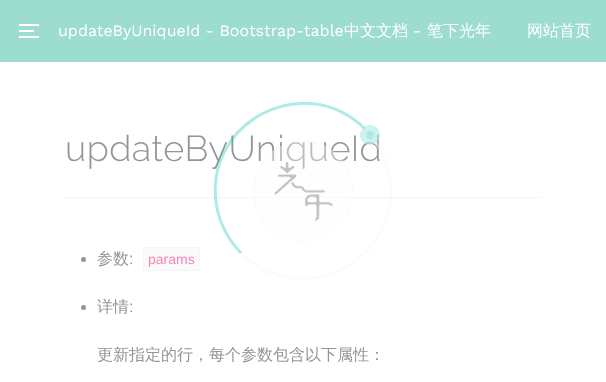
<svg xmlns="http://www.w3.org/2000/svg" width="606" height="382">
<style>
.a{font:16px Work Sans;fill:#fff}
.b{font:500 16px WenQuanYi Zen Hei;fill:#fff}
.c{font:300 36px Raleway;letter-spacing:0.5px;fill:#92959a}
.d{font:500 16px WenQuanYi Zen Hei;fill:#92959a}
.e{font:16px Liberation Sans;fill:#92959a}
.f{font:14px Liberation Sans;fill:#f189b9}
</style>
<rect width="100%" height="100%" fill="#fff"/>
<path fill="#9cddd0" d="M0 0h606v62H0z"/>
<path fill="#fff" d="M19 24h20v2H19z"/>
<path fill="#fff" d="M19 30h15v2H19z"/>
<path fill="#fff" d="M19 36h20v2H19z"/>
<path fill="#f5f5f5" d="M65 197h476v1H65z"/>
<circle fill="#92959a" cx="83.5" cy="259.5" r="2.5"/>
<path fill="#fafafa" d="M145.5 247h2.5v24h-2.5c-1.5 0-2.5-1-2.5-2.5v-19c0-1.5 1-2.5 2.5-2.5z"/>
<path fill="#f5f5f5" fill-rule="evenodd" d="M145.5 247h2.5v24h-2.5c-1.5 0-2.5-1-2.5-2.5v-19c0-1.5 1-2.5 2.5-2.5zm0 1h2.5v22h-2.5c-1 0-1.5-.5-1.5-1.5v-19c0-1 .5-1.5 1.5-1.5z"/>
<path fill="#fafafa" d="M148 248h47v22H148z"/>
<path fill="#f5f5f5" d="M148 247h47v1H148z"/>
<path fill="#f5f5f5" d="M148 270h47v1H148z"/>
<path fill="#fafafa" d="M195 247h2.5c1.5 0 2.5 1 2.5 2.5v19c0 1.5-1 2.5-2.5 2.5h-2.5z"/>
<path fill="#f5f5f5" fill-rule="evenodd" d="M195 247c5 0 5 .5 5 5.5v13c0 5 0 5.5-5 5.5zm0 1c4.5 0 4 0 4 4.5v13c0 4.5 .5 4.5-4 4.5z"/>
<circle fill="#92959a" cx="83.5" cy="307.5" r="2.5"/>
<text class="a" x="58" y="36">updateByUniqueId - Bootstrap-table</text>
<text class="b" x="344" y="36">中文文档</text>
<text class="a" x="413" y="36">-</text>
<text class="b" x="427" y="36">笔下光年</text>
<text class="b" x="527" y="36">网站首页</text>
<text class="c" x="65" y="161">updateByUniqueId</text>
<text class="d" x="97" y="264">参数</text>
<text class="e" x="129" y="264">:</text>
<text class="f" x="148" y="264">params</text>
<text class="d" x="97" y="312">详情</text>
<text class="e" x="129" y="312">:</text>
<text class="d" x="97" y="360">更新指定的行，每个参数包含以下属性：</text>
<circle fill="#fdfdfd63" cx="303" cy="191" r="50"/>
<circle fill="none" stroke="#eef3f463" cx="303" cy="191" r="49.5"/>
<image href="1.png" x="274" y="162" width="59" height="59"/>
<path fill="none" stroke="#f1f6f863" stroke-width="3" d="M365 129c12 12.5 20.5 28 24 45c16.5 84.5-87 140-148 79"/>
<path fill="none" stroke="#33cabb63" stroke-width="3" d="M241 253c-12-12.5-20.5-28-24-45c-16.5-84.5 87-140 148-79"/>
<circle fill="#33cabb63" cx="370" cy="135" r="10"/>
<circle fill="none" stroke="#ffffff63" stroke-width="6" cx="370" cy="135" r="7"/>
</svg>
